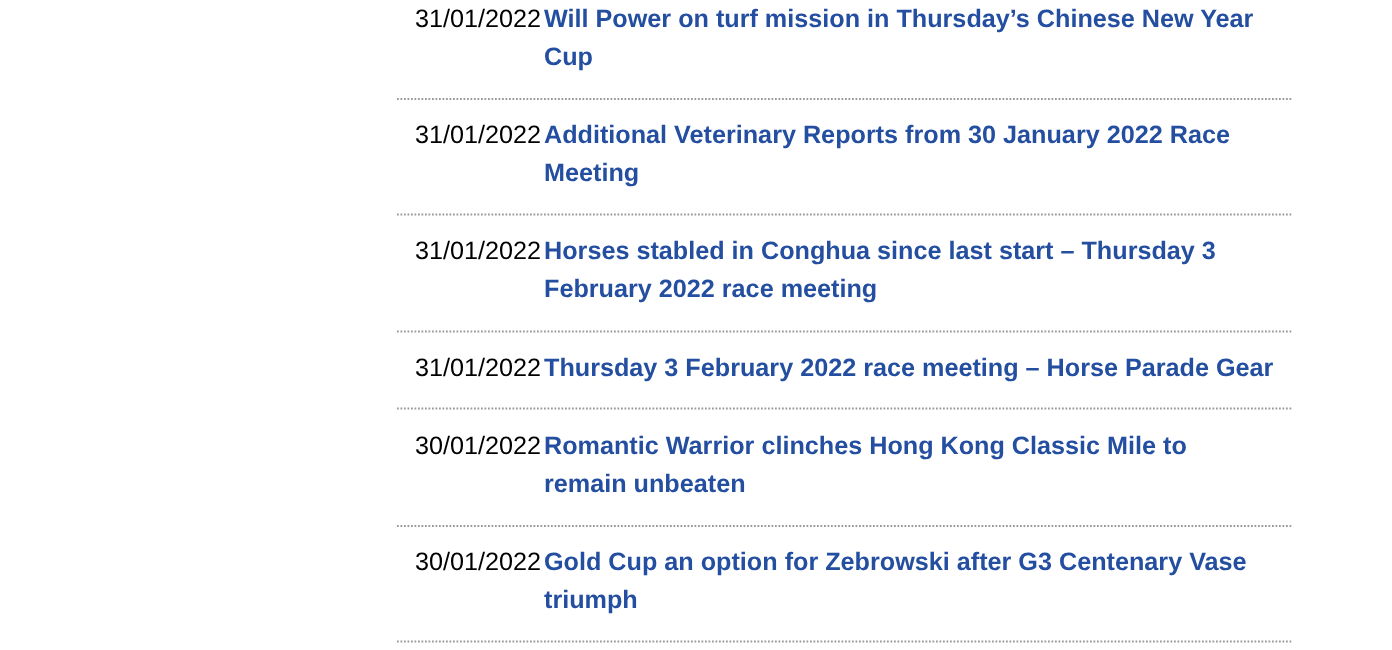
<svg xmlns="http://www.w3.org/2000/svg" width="1392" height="650">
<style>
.a{font:25.2px Liberation Sans;fill:#000}
.b{font:bold 25.2px Liberation Sans;fill:#244fa1}
</style>
<rect width="100%" height="100%" fill="#fff"/>
<path fill="none" stroke="#999" stroke-width="1.8" stroke-dasharray="1.75 1.75" d="M397 99h896"/>
<path fill="none" stroke="#999" stroke-width="1.8" stroke-dasharray="1.75 1.75" d="M397 214.5h896"/>
<path fill="none" stroke="#999" stroke-width="1.8" stroke-dasharray="1.75 1.75" d="M397 331.5h896"/>
<path fill="none" stroke="#999" stroke-width="1.8" stroke-dasharray="1.75 1.75" d="M397 408.5h896"/>
<path fill="none" stroke="#999" stroke-width="1.8" stroke-dasharray="1.75 1.75" d="M397 526h896"/>
<path fill="none" stroke="#999" stroke-width="1.8" stroke-dasharray="1.75 1.75" d="M397 641.5h896"/>
<text class="a" x="415" y="27">31/01/2022</text>
<text class="b" x="544" y="27">Will Power on turf mission in Thursday’s Chinese New Year</text>
<text class="b" x="544" y="65">Cup</text>
<text class="a" x="415" y="143">31/01/2022</text>
<text class="b" x="544" y="143">Additional Veterinary Reports from 30 January 2022 Race</text>
<text class="b" x="544" y="181">Meeting</text>
<text class="a" x="415" y="259">31/01/2022</text>
<text class="b" x="544" y="259">Horses stabled in Conghua since last start – Thursday 3</text>
<text class="b" x="544" y="297">February 2022 race meeting</text>
<text class="a" x="415" y="376">31/01/2022</text>
<text class="b" x="544" y="376">Thursday 3 February 2022 race meeting – Horse Parade Gear</text>
<text class="a" x="415" y="454">30/01/2022</text>
<text class="b" x="544" y="454">Romantic Warrior clinches Hong Kong Classic Mile to</text>
<text class="b" x="544" y="492">remain unbeaten</text>
<text class="a" x="415" y="570">30/01/2022</text>
<text class="b" x="544" y="570">Gold Cup an option for Zebrowski after G3 Centenary Vase</text>
<text class="b" x="544" y="608">triumph</text>
</svg>
